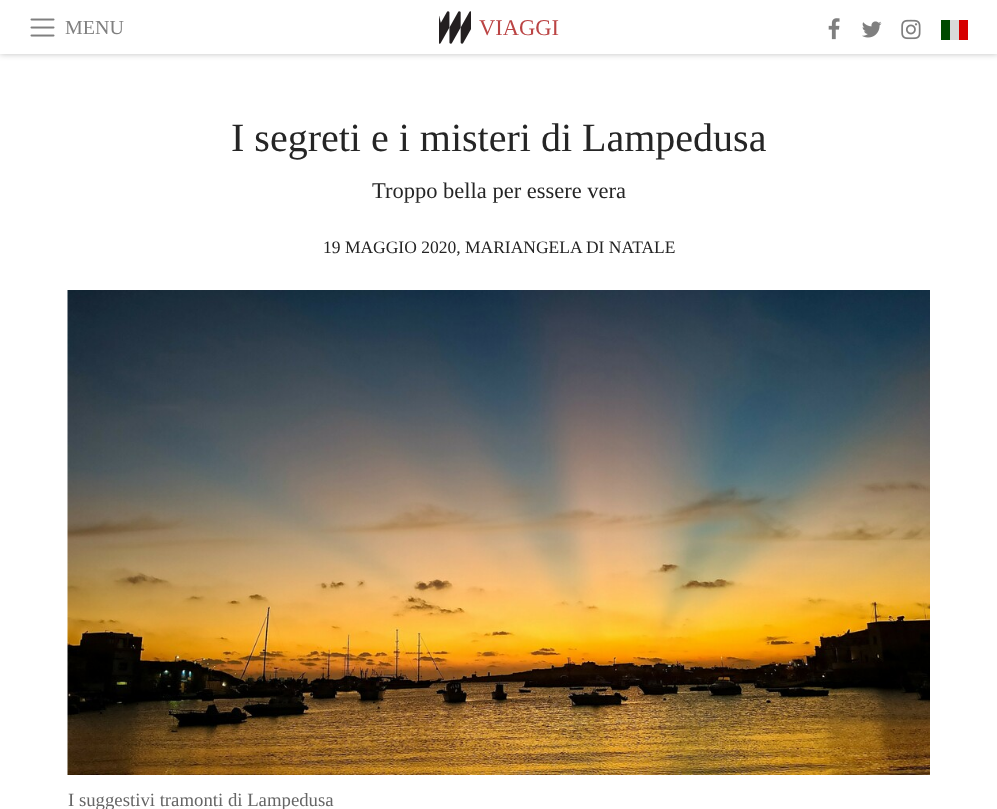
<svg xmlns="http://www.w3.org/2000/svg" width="997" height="809">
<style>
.a{font:20px Liberation Serif;fill:#808080}
.b{font:22.5px Liberation Serif;fill:#b44}
.c{font:40px Liberation Serif;fill:#252525}
.d{font:22.5px Liberation Serif;fill:#252525}
.e{font:17.5px Liberation Serif;fill:#252525}
.f{font:18.75px Liberation Serif;fill:#666}
</style>
<rect width="100%" height="100%" fill="#fff"/>
<path fill="#00000040" filter="blur(3px)" d="M0 0h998v54H0z"/>
<path fill="#fff" d="M0 0h997v54H0z"/>
<image href="1.png" x="30" y="18" width="25" height="19"/>
<image href="2.png" x="439" y="11" width="32" height="33"/>
<image href="3.png" x="828" y="18" width="12" height="22"/>
<image href="4.png" x="862" y="21" width="20" height="17"/>
<image href="5.png" x="901" y="19" width="20" height="21"/>
<path fill="#004a00" d="M941 20h9v20H941z"/>
<path fill="#d9d9d9" d="M950 20h9v20H950z"/>
<path fill="#d60000" d="M959 20h9v20H959z"/>
<image href="6.png" x="67" y="290" width="863" height="485"/>
<text class="a" x="65" y="34">MENU</text>
<text class="b" x="479" y="35">VIAGGI</text>
<text class="c" x="231" y="151">I segreti e i misteri di Lampedusa</text>
<text class="d" x="372" y="198">Troppo bella per essere vera</text>
<text class="e" x="323" y="253">19 MAGGIO 2020, MARIANGELA DI NATALE</text>
<text class="f" x="68" y="806">I suggestivi tramonti di Lampedusa</text>
</svg>
